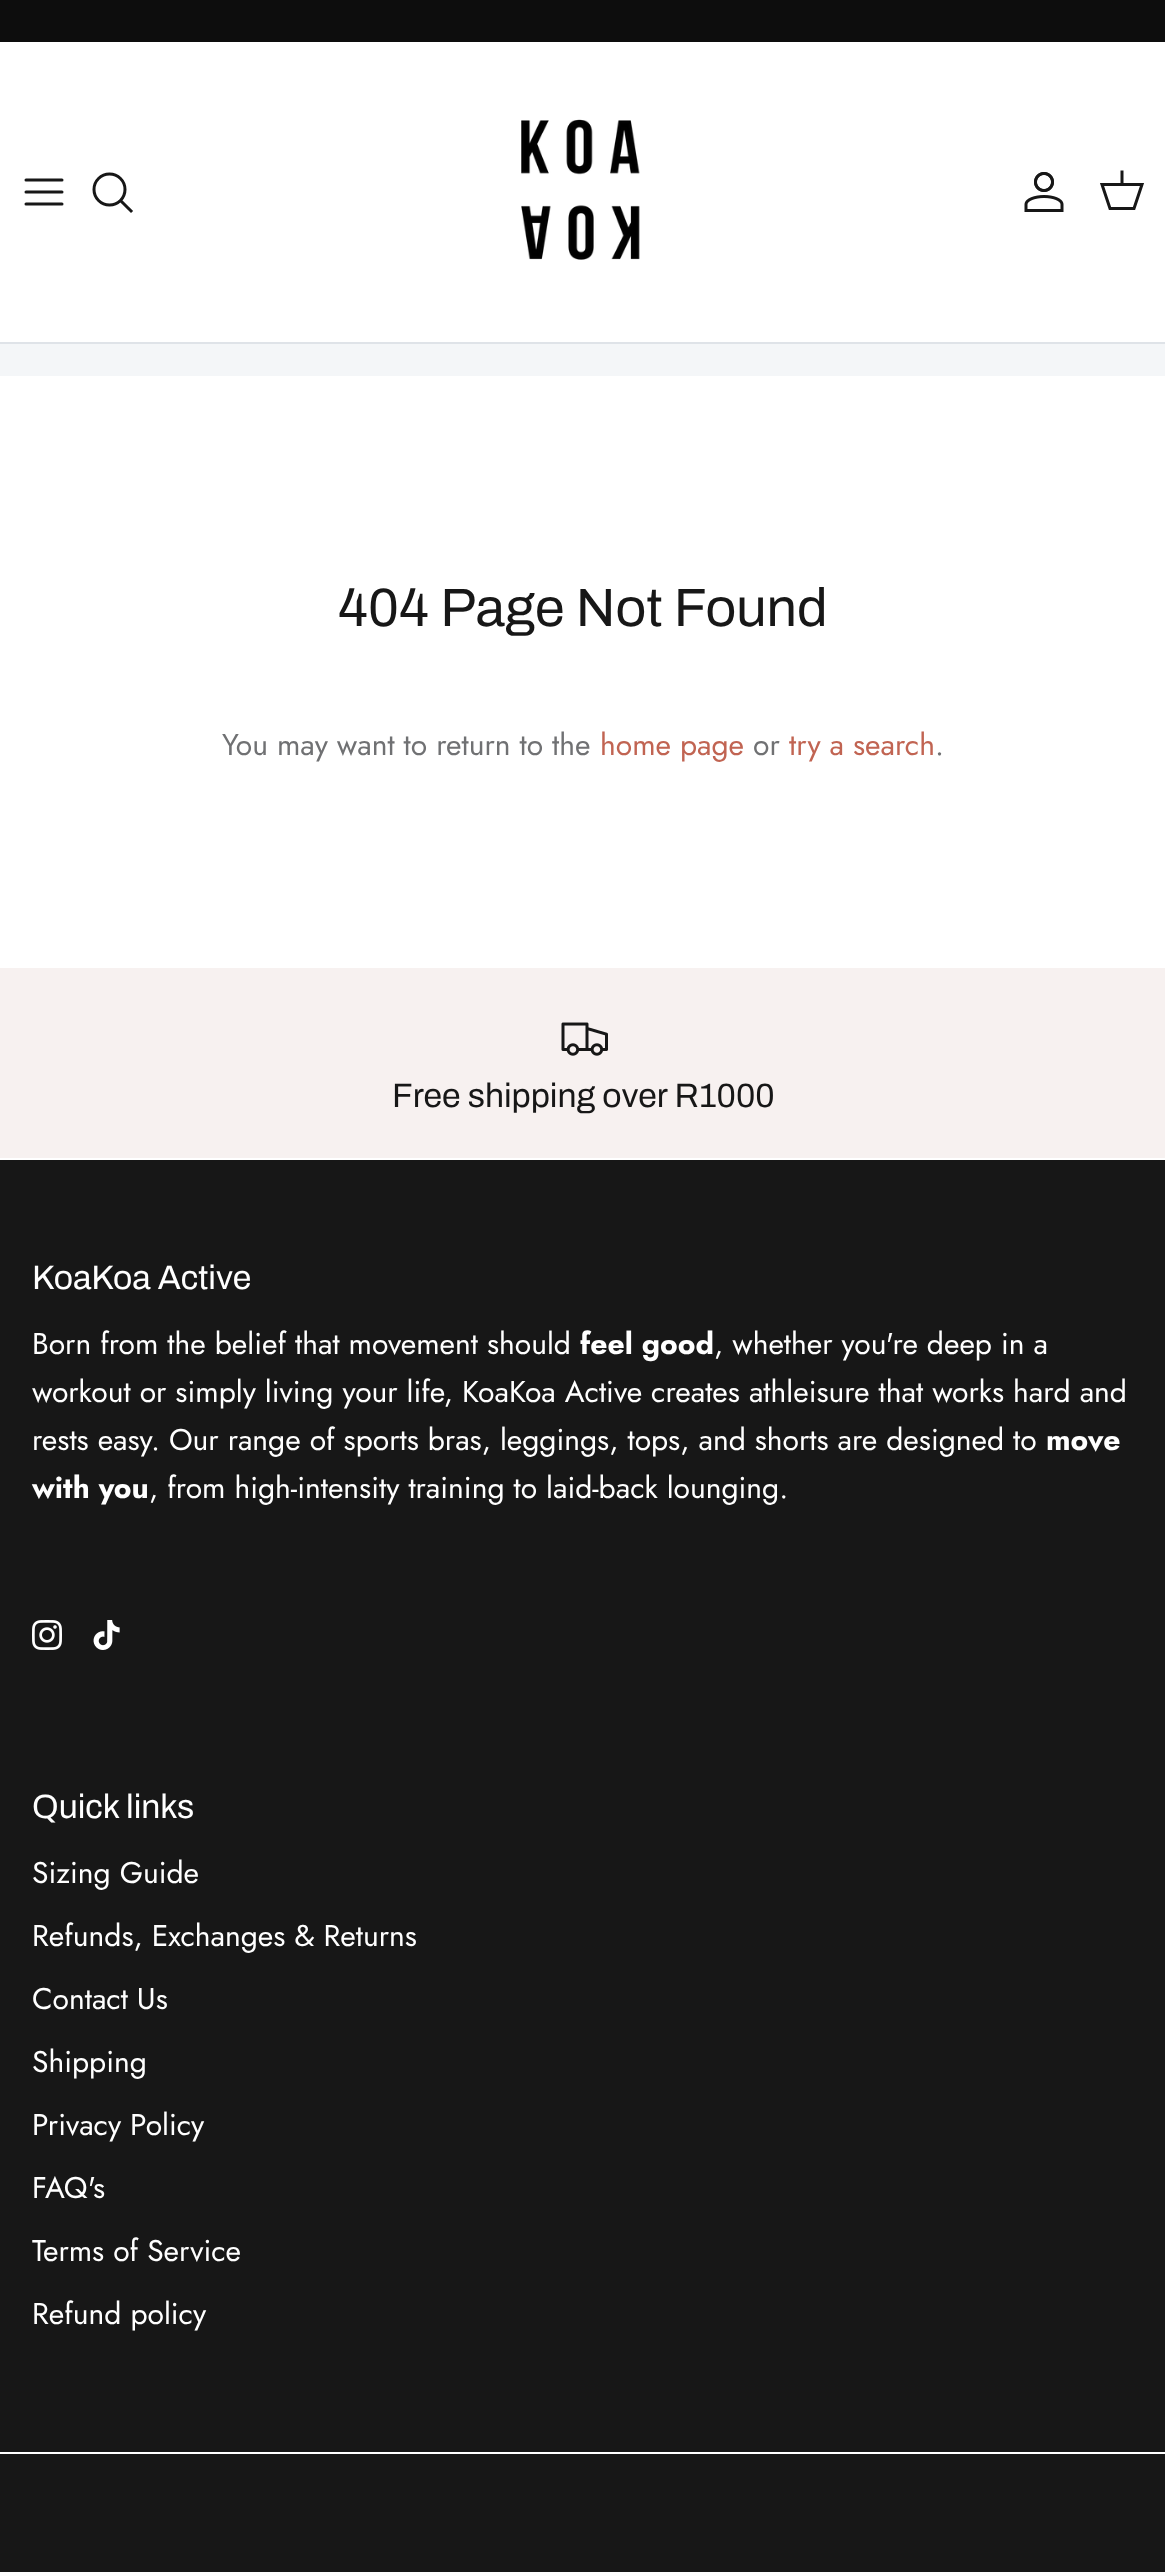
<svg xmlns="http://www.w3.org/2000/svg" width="1165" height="2572">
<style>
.a{font:54px Archivo;fill:#171717}
.b{font:30px Jost;fill:#707173}
.c{font:30px Jost;fill:#c16452}
.d{font:33.8px Archivo;fill:#171717}
.e{font:33.8px Archivo;fill:#fff}
.f{font:30px Jost;fill:#fff}
.g{font:bold 30px Jost;fill:#fff}
</style>
<rect width="100%" height="100%" fill="#fff"/>
<path fill="#0d0d0d" d="M0 0h1165v42H0z"/>
<path fill="#dfe3e8" d="M0 342h1165v2H0z"/>
<path fill="none" stroke="#171717" stroke-width="3" stroke-linecap="round" stroke-linejoin="round" d="M26 192h36m-36-12h36m-36 24h36"/>
<circle fill="none" stroke="#171717" stroke-width="3" cx="109.5" cy="189.5" r="15.5"/>
<path fill="none" stroke="#171717" stroke-width="3" stroke-linecap="square" d="M122 202l9 9"/>
<image href="1.png" x="521" y="119" width="119" height="141"/>
<image href="2.png" x="1024" y="172" width="40" height="40"/>
<path fill="none" stroke="#171717" stroke-width="3" d="M1102 184.5h40l-8 24h-24z"/>
<path fill="none" stroke="#171717" stroke-width="3" stroke-linecap="square" d="M1122 184v-12"/>
<path fill="#f4f6f8" d="M0 344h1165v32H0z"/>
<path fill="#171717" d="M0 1160h1165v1412H0z"/>
<path fill="#f7f1f0" d="M0 968h1165v190H0z"/>
<image href="3.png" x="561" y="1022" width="47" height="34"/>
<image href="4.png" x="32" y="1620" width="30" height="30"/>
<image href="5.png" x="93" y="1620" width="27" height="30"/>
<path fill="#fff" d="M0 2452h1165v2H0z"/>
<text class="a" x="338" y="626">404 Page Not Found</text>
<text class="b" x="222" y="755">You may want to return to the</text>
<text class="c" x="600" y="755">home page</text>
<text class="b" x="753" y="755">or</text>
<text class="c" x="789" y="755">try a search</text>
<text class="b" x="935" y="755">.</text>
<text class="d" x="392" y="1107">Free shipping over R1000</text>
<text class="e" x="32" y="1289">KoaKoa Active</text>
<text class="f" x="32" y="1354">Born from the belief that movement should</text>
<text class="g" x="580" y="1354">feel good</text>
<text class="f" x="714" y="1354">, whether you're deep in a</text>
<text class="f" x="32" y="1402">workout or simply living your life, KoaKoa Active creates athleisure that works hard and</text>
<text class="f" x="32" y="1450">rests easy. Our range of sports bras, leggings, tops, and shorts are designed to</text>
<text class="g" x="1046" y="1450">move</text>
<text class="g" x="32" y="1498">with you</text>
<text class="f" x="149" y="1498">, from high-intensity training to laid-back lounging.</text>
<text class="e" x="32" y="1818">Quick links</text>
<text class="f" x="32" y="1883">Sizing Guide</text>
<text class="f" x="32" y="1946">Refunds, Exchanges &amp; Returns</text>
<text class="f" x="32" y="2009">Contact Us</text>
<text class="f" x="32" y="2072">Shipping</text>
<text class="f" x="32" y="2135">Privacy Policy</text>
<text class="f" x="32" y="2198">FAQ's</text>
<text class="f" x="32" y="2261">Terms of Service</text>
<text class="f" x="32" y="2324">Refund policy</text>
</svg>
